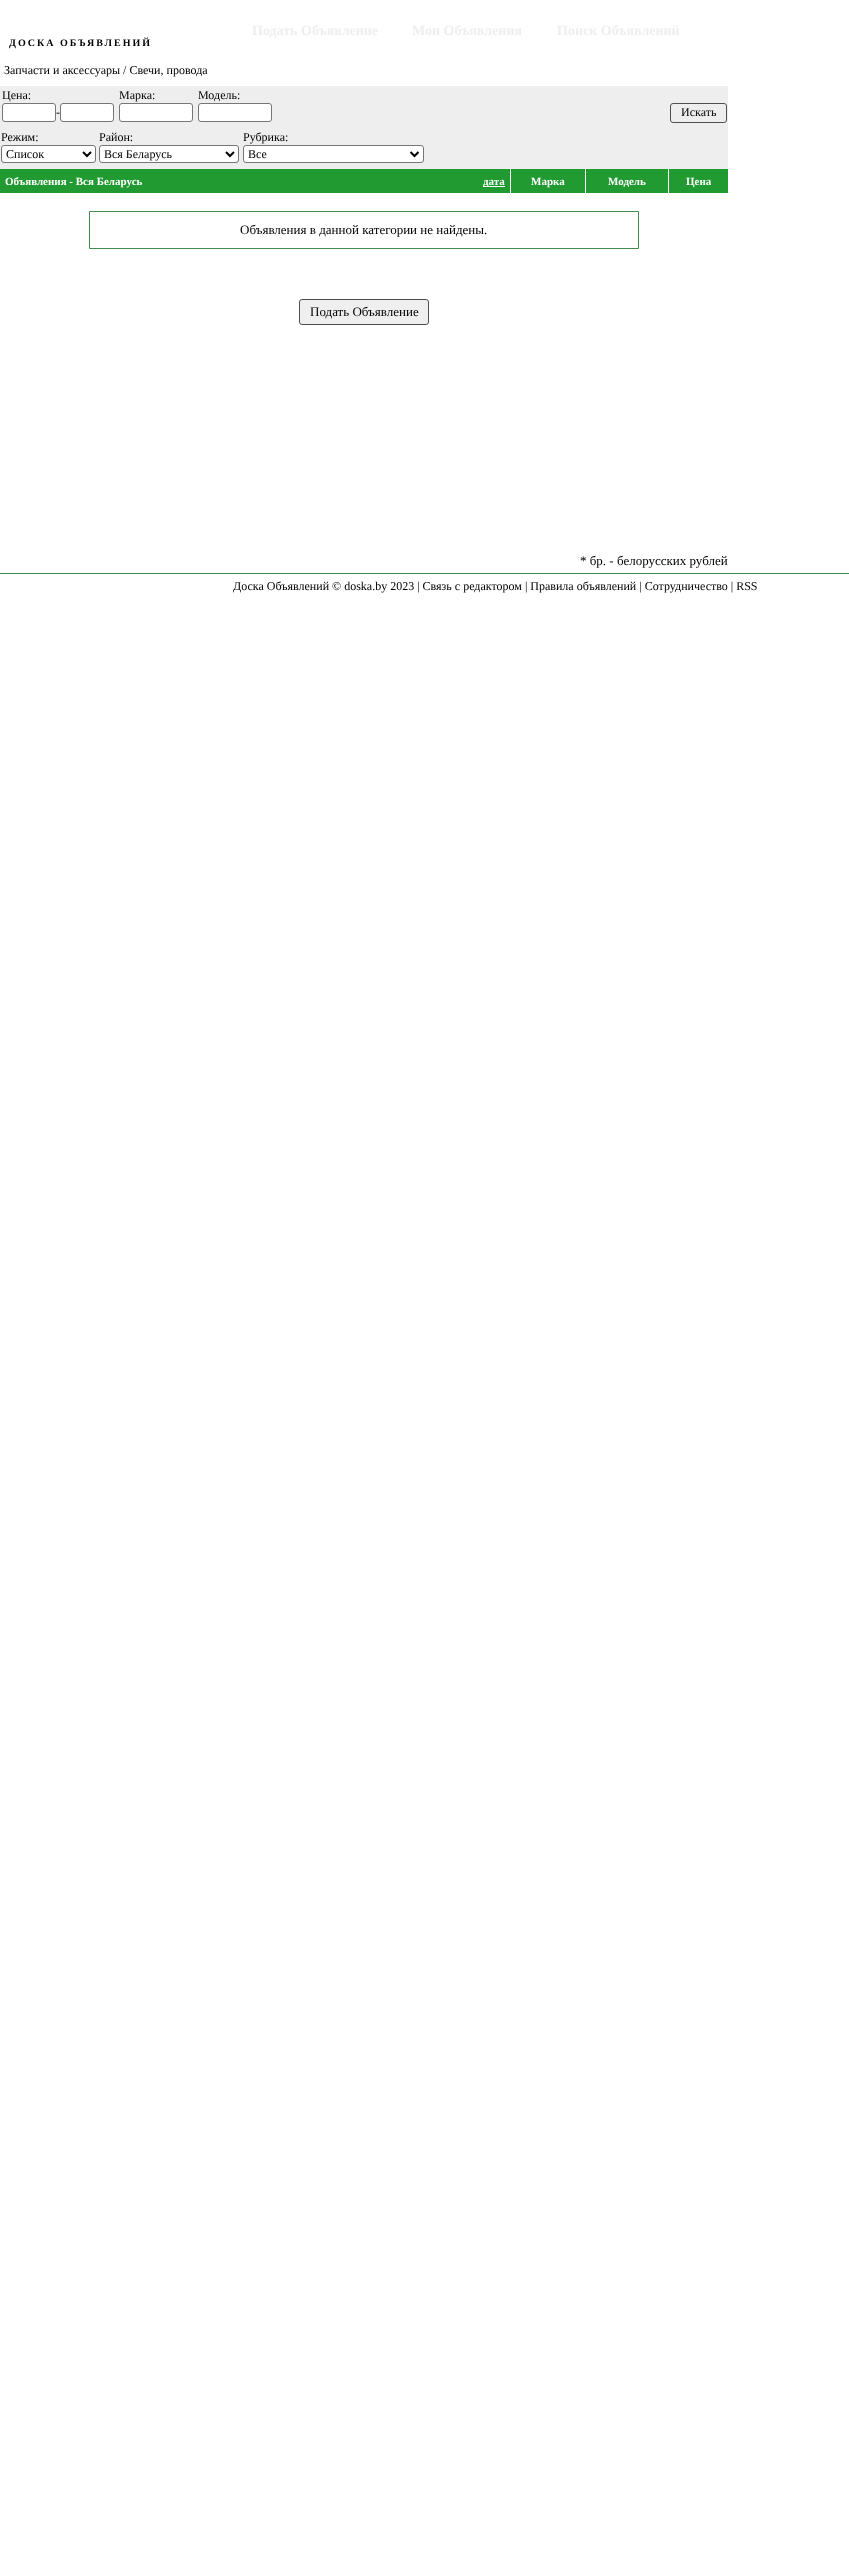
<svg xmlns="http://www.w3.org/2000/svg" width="849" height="2574">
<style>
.a{font:bold 14px Liberation Serif;fill:#eee}
.b{font:bold 10px Liberation Serif;letter-spacing:2px;fill:#000}
.c{font:12px Liberation Serif;fill:#000}
.d{font:bold 11px Liberation Serif;fill:#fff}
.e{font:13px Liberation Serif;fill:#000}
</style>
<rect width="100%" height="100%" fill="#fff"/>
<path fill="#eee" d="M0 86h728v83H0z"/>
<rect fill="#fff" stroke="#767676" x="2.5" y="103.5" width="53" height="18" rx="2.5"/>
<rect fill="#fff" stroke="#767676" x="60.5" y="103.5" width="53" height="18" rx="2.5"/>
<rect fill="#fff" stroke="#767676" x="119.5" y="103.5" width="73" height="18" rx="2.5"/>
<rect fill="#fff" stroke="#767676" x="198.5" y="103.5" width="73" height="18" rx="2.5"/>
<rect fill="none" stroke="#4f4f4f" x="670.5" y="103.5" width="56" height="19" rx="2.5"/>
<rect fill="#fff" stroke="#767676" x="1.5" y="145.5" width="94" height="17" rx="2.5"/>
<path fill="none" stroke="#000" stroke-width="2" d="M83 152l4 4l4-4"/>
<rect fill="#fff" stroke="#767676" x="99.5" y="145.5" width="139" height="17" rx="2.5"/>
<path fill="none" stroke="#000" stroke-width="2" d="M226 152l4 4l4-4"/>
<rect fill="#fff" stroke="#767676" x="243.5" y="145.5" width="180" height="17" rx="2.5"/>
<path fill="none" stroke="#000" stroke-width="2" d="M410.5 152l4 4l4-4"/>
<path fill="#219a32" d="M0 169h510v24H0z"/>
<path fill="#fff" d="M483 186h22v1H483z"/>
<path fill="#219a32" d="M511 169h74v24H511z"/>
<path fill="#219a32" d="M586 169h82v24H586z"/>
<path fill="#219a32" d="M669 169h59v24H669z"/>
<path fill="none" stroke="#418c4e" d="M89.5 211.5h549v37H89.5z"/>
<rect fill="#efefef" stroke="#4f4f4f" x="299.5" y="299.5" width="129" height="25" rx="2.5"/>
<path fill="#418c4e" d="M0 573h849v1H0z"/>
<text class="a" x="252" y="35">Подать Объявление</text>
<text class="a" x="412" y="35">Мои Объявления</text>
<text class="a" x="557" y="35">Поиск Объявлений</text>
<text class="b" x="9" y="46">ДОСКА ОБЪЯВЛЕНИЙ</text>
<text class="c" x="4" y="74">Запчасти и аксессуары / Свечи, провода</text>
<text class="c" x="2" y="99">Цена:</text>
<text class="c" x="56" y="116">-</text>
<text class="c" x="119" y="99">Марка:</text>
<text class="c" x="198" y="99">Модель:</text>
<text class="c" x="681" y="116">Искать</text>
<text class="c" x="1" y="141">Режим:</text>
<text class="c" x="6" y="158">Список</text>
<text class="c" x="99" y="141">Район:</text>
<text class="c" x="104" y="158">Вся Беларусь</text>
<text class="c" x="243" y="141">Рубрика:</text>
<text class="c" x="248" y="158">Все</text>
<text class="d" x="5" y="185">Объявления - Вся Беларусь</text>
<text class="d" x="483" y="185">дата</text>
<text class="d" x="531" y="185">Марка</text>
<text class="d" x="608" y="185">Модель</text>
<text class="d" x="686" y="185">Цена</text>
<text class="e" x="240" y="234">Объявления в данной категории не найдены.</text>
<text class="e" x="310" y="316">Подать Объявление</text>
<text class="e" x="580" y="565">* бр. - белорусских рублей</text>
<text class="c" x="233" y="590">Доска Объявлений © doska.by 2023 | Связь с редактором | Правила объявлений | Сотрудничество | RSS</text>
</svg>
